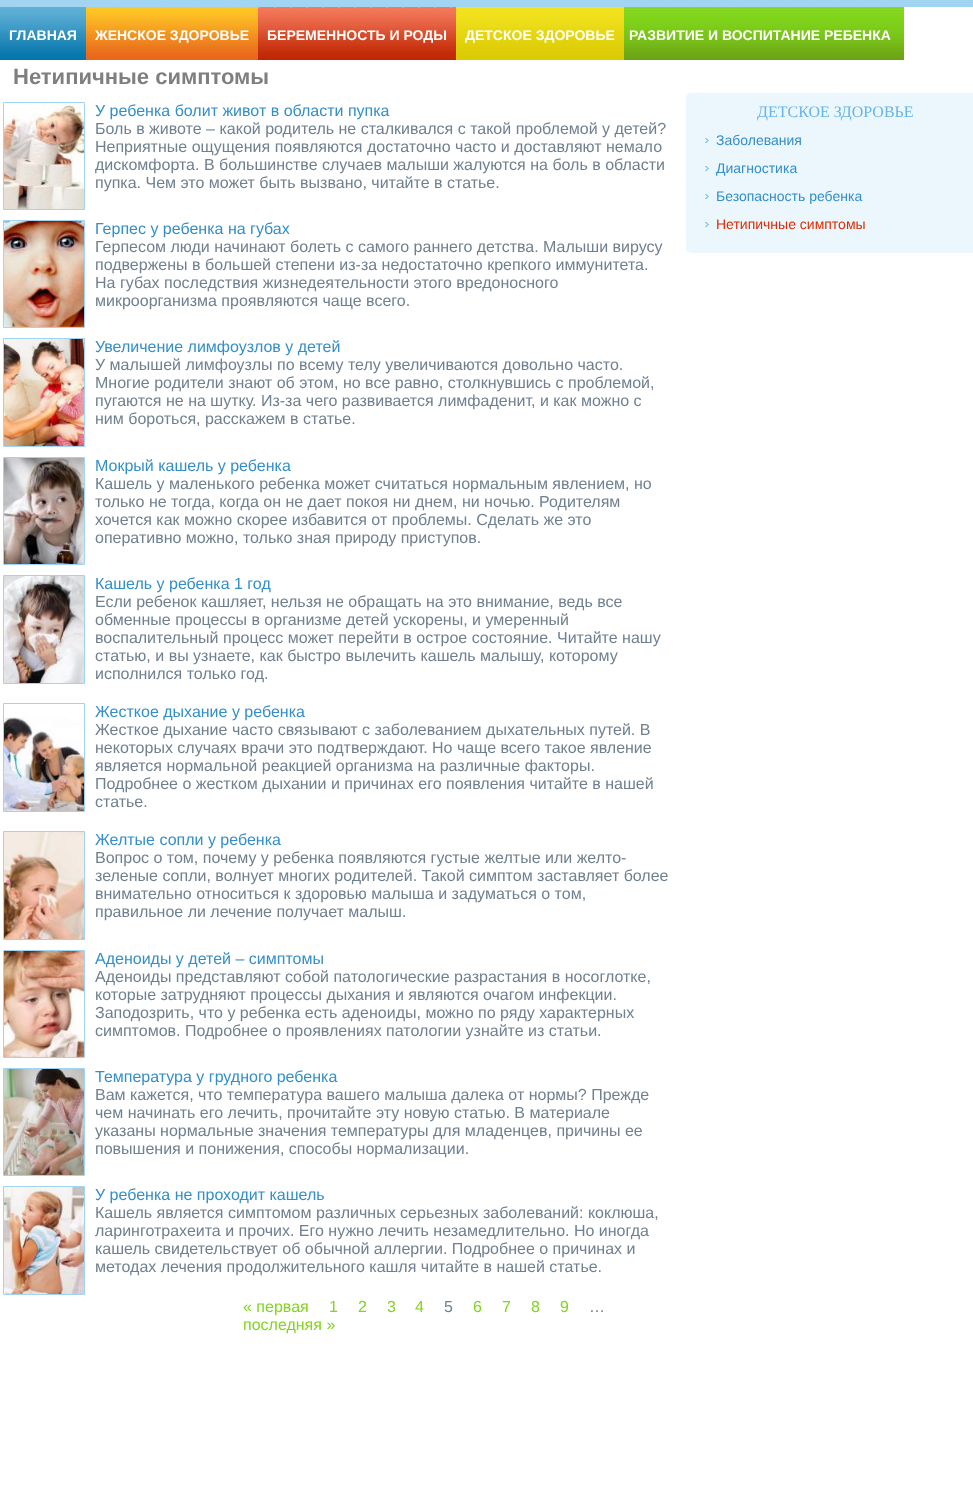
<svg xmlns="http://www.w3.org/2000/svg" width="973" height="1509">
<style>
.a{font:bold 14px Liberation Sans;fill:#fff}
.b{font:bold 22px Liberation Sans;fill:#7f7f7e}
.c{font:16px Liberation Sans;fill:#338ec9}
.d{font:16px Liberation Sans;fill:#708090}
.e{font:16px Liberation Sans;fill:#81d51c}
.f{font:16px Liberation Serif;fill:#65b5e9}
.g{font:14px Liberation Sans;fill:#338ec9}
.h{font:14px Liberation Sans;fill:#df2c04}
</style>
<rect width="100%" height="100%" fill="#fff"/>
<image href="1.png" x="0" y="0" width="973" height="7"/>
<image href="2.png" x="0" y="7" width="86" height="53"/>
<image href="3.png" x="86" y="7" width="172" height="53"/>
<image href="4.png" x="258" y="7" width="198" height="53"/>
<image href="5.png" x="456" y="7" width="168" height="53"/>
<image href="6.png" x="624" y="7" width="280" height="53"/>
<path fill="none" stroke="#a1d4f1" d="M3.5 102.5h81v107H3.5z"/>
<image href="7.png" x="4" y="103" width="80" height="106"/>
<path fill="none" stroke="#a1d4f1" d="M3.5 220.5h81v107H3.5z"/>
<image href="8.png" x="4" y="221" width="80" height="106"/>
<path fill="none" stroke="#a1d4f1" d="M3.5 338.5h81v108H3.5z"/>
<image href="9.png" x="4" y="339" width="80" height="107"/>
<path fill="none" stroke="#a1d4f1" d="M3.5 457.5h81v107H3.5z"/>
<image href="10.png" x="4" y="458" width="80" height="106"/>
<path fill="none" stroke="#a1d4f1" d="M3.5 575.5h81v108H3.5z"/>
<image href="11.png" x="4" y="576" width="80" height="107"/>
<path fill="none" stroke="#a1d4f1" d="M3.5 703.5h81v108H3.5z"/>
<image href="12.png" x="4" y="717" width="80" height="94"/>
<path fill="none" stroke="#a1d4f1" d="M3.5 831.5h81v108H3.5z"/>
<image href="13.png" x="4" y="832" width="80" height="107"/>
<path fill="none" stroke="#a1d4f1" d="M3.5 950.5h81v107H3.5z"/>
<image href="14.png" x="4" y="951" width="80" height="106"/>
<path fill="none" stroke="#a1d4f1" d="M3.5 1068.5h81v107H3.5z"/>
<image href="15.png" x="4" y="1069" width="80" height="106"/>
<path fill="none" stroke="#a1d4f1" d="M3.5 1186.5h81v108H3.5z"/>
<image href="16.png" x="4" y="1187" width="80" height="107"/>
<rect fill="#ecf7fd" x="686" y="93" width="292" height="160" rx="5"/>
<image href="17.png" x="705" y="138" width="4" height="5"/>
<image href="17.png" x="705" y="166" width="4" height="5"/>
<image href="17.png" x="705" y="194" width="4" height="5"/>
<image href="17.png" x="705" y="222" width="4" height="5"/>
<text class="a" x="9" y="40">ГЛАВНАЯ</text>
<text class="a" x="95" y="40">ЖЕНСКОЕ ЗДОРОВЬЕ</text>
<text class="a" x="267" y="40">БЕРЕМЕННОСТЬ И РОДЫ</text>
<text class="a" x="465" y="40">ДЕТСКОЕ ЗДОРОВЬЕ</text>
<text class="a" x="629" y="40">РАЗВИТИЕ И ВОСПИТАНИЕ РЕБЕНКА</text>
<text class="b" x="13" y="84">Нетипичные симптомы</text>
<text class="c" x="95" y="116">У ребенка болит живот в области пупка</text>
<text class="d" x="95" y="134">Боль в животе – какой родитель не сталкивался с такой проблемой у детей?</text>
<text class="d" x="95" y="152">Неприятные ощущения появляются достаточно часто и доставляют немало</text>
<text class="d" x="95" y="170">дискомфорта. В большинстве случаев малыши жалуются на боль в области</text>
<text class="d" x="95" y="188">пупка. Чем это может быть вызвано, читайте в статье.</text>
<text class="c" x="95" y="234">Герпес у ребенка на губах</text>
<text class="d" x="95" y="252">Герпесом люди начинают болеть с самого раннего детства. Малыши вирусу</text>
<text class="d" x="95" y="270">подвержены в большей степени из-за недостаточно крепкого иммунитета.</text>
<text class="d" x="95" y="288">На губах последствия жизнедеятельности этого вредоносного</text>
<text class="d" x="95" y="306">микроорганизма проявляются чаще всего.</text>
<text class="c" x="95" y="352">Увеличение лимфоузлов у детей</text>
<text class="d" x="95" y="370">У малышей лимфоузлы по всему телу увеличиваются довольно часто.</text>
<text class="d" x="95" y="388">Многие родители знают об этом, но все равно, столкнувшись с проблемой,</text>
<text class="d" x="95" y="406">пугаются не на шутку. Из-за чего развивается лимфаденит, и как можно с</text>
<text class="d" x="95" y="424">ним бороться, расскажем в статье.</text>
<text class="c" x="95" y="471">Мокрый кашель у ребенка</text>
<text class="d" x="95" y="489">Кашель у маленького ребенка может считаться нормальным явлением, но</text>
<text class="d" x="95" y="507">только не тогда, когда он не дает покоя ни днем, ни ночью. Родителям</text>
<text class="d" x="95" y="525">хочется как можно скорее избавится от проблемы. Сделать же это</text>
<text class="d" x="95" y="543">оперативно можно, только зная природу приступов.</text>
<text class="c" x="95" y="589">Кашель у ребенка 1 год</text>
<text class="d" x="95" y="607">Если ребенок кашляет, нельзя не обращать на это внимание, ведь все</text>
<text class="d" x="95" y="625">обменные процессы в организме детей ускорены, и умеренный</text>
<text class="d" x="95" y="643">воспалительный процесс может перейти в острое состояние. Читайте нашу</text>
<text class="d" x="95" y="661">статью, и вы узнаете, как быстро вылечить кашель малышу, которому</text>
<text class="d" x="95" y="679">исполнился только год.</text>
<text class="c" x="95" y="717">Жесткое дыхание у ребенка</text>
<text class="d" x="95" y="735">Жесткое дыхание часто связывают с заболеванием дыхательных путей. В</text>
<text class="d" x="95" y="753">некоторых случаях врачи это подтверждают. Но чаще всего такое явление</text>
<text class="d" x="95" y="771">является нормальной реакцией организма на различные факторы.</text>
<text class="d" x="95" y="789">Подробнее о жестком дыхании и причинах его появления читайте в нашей</text>
<text class="d" x="95" y="807">статье.</text>
<text class="c" x="95" y="845">Желтые сопли у ребенка</text>
<text class="d" x="95" y="863">Вопрос о том, почему у ребенка появляются густые желтые или желто-</text>
<text class="d" x="95" y="881">зеленые сопли, волнует многих родителей. Такой симптом заставляет более</text>
<text class="d" x="95" y="899">внимательно относиться к здоровью малыша и задуматься о том,</text>
<text class="d" x="95" y="917">правильное ли лечение получает малыш.</text>
<text class="c" x="95" y="964">Аденоиды у детей – симптомы</text>
<text class="d" x="95" y="982">Аденоиды представляют собой патологические разрастания в носоглотке,</text>
<text class="d" x="95" y="1000">которые затрудняют процессы дыхания и являются очагом инфекции.</text>
<text class="d" x="95" y="1018">Заподозрить, что у ребенка есть аденоиды, можно по ряду характерных</text>
<text class="d" x="95" y="1036">симптомов. Подробнее о проявлениях патологии узнайте из статьи.</text>
<text class="c" x="95" y="1082">Температура у грудного ребенка</text>
<text class="d" x="95" y="1100">Вам кажется, что температура вашего малыша далека от нормы? Прежде</text>
<text class="d" x="95" y="1118">чем начинать его лечить, прочитайте эту новую статью. В материале</text>
<text class="d" x="95" y="1136">указаны нормальные значения температуры для младенцев, причины ее</text>
<text class="d" x="95" y="1154">повышения и понижения, способы нормализации.</text>
<text class="c" x="95" y="1200">У ребенка не проходит кашель</text>
<text class="d" x="95" y="1218">Кашель является симптомом различных серьезных заболеваний: коклюша,</text>
<text class="d" x="95" y="1236">ларинготрахеита и прочих. Его нужно лечить незамедлительно. Но иногда</text>
<text class="d" x="95" y="1254">кашель свидетельствует об обычной аллергии. Подробнее о причинах и</text>
<text class="d" x="95" y="1272">методах лечения продолжительного кашля читайте в нашей статье.</text>
<text class="e" x="243" y="1312">« первая</text>
<text class="e" x="329" y="1312">1</text>
<text class="e" x="358" y="1312">2</text>
<text class="e" x="387" y="1312">3</text>
<text class="e" x="415" y="1312">4</text>
<text class="d" x="444" y="1312">5</text>
<text class="e" x="473" y="1312">6</text>
<text class="e" x="502" y="1312">7</text>
<text class="e" x="531" y="1312">8</text>
<text class="e" x="560" y="1312">9</text>
<text class="d" x="589" y="1312">…</text>
<text class="e" x="243" y="1330">последняя »</text>
<text class="f" x="757" y="117">ДЕТСКОЕ ЗДОРОВЬЕ</text>
<text class="g" x="716" y="145">Заболевания</text>
<text class="g" x="716" y="173">Диагностика</text>
<text class="g" x="716" y="201">Безопасность ребенка</text>
<text class="h" x="716" y="229">Нетипичные симптомы</text>
</svg>
